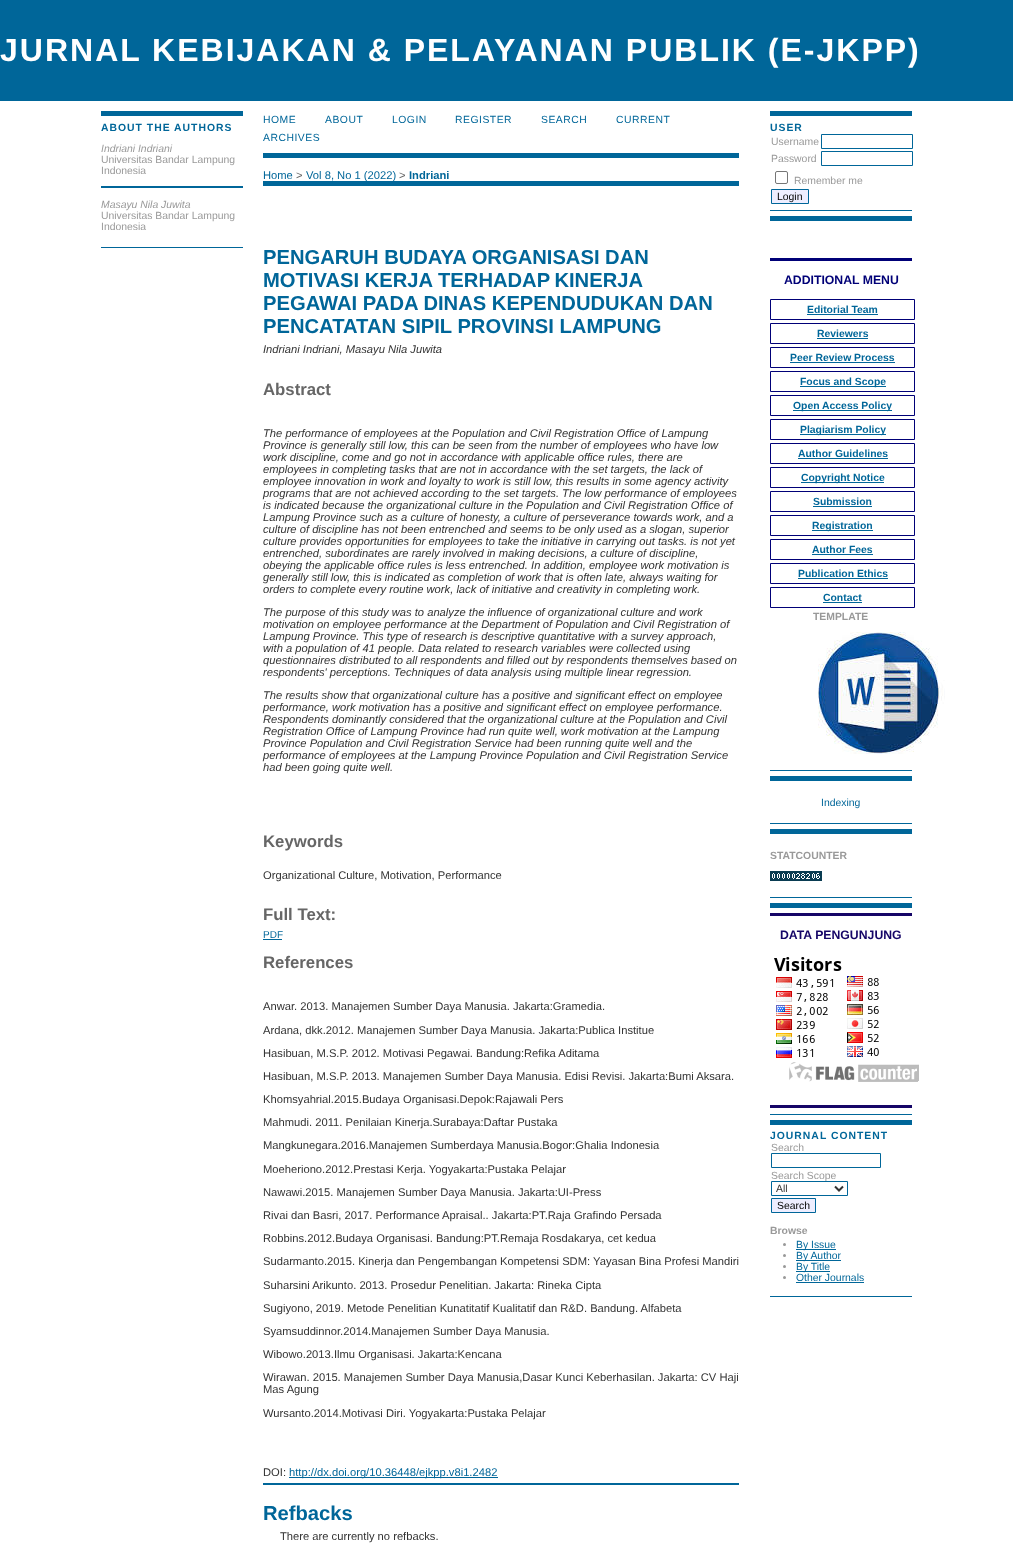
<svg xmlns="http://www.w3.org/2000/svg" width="1013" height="1566">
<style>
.a{font:bold 32px Liberation Sans;letter-spacing:2px;fill:#fff}
.b{font:10.4px Liberation Sans;letter-spacing:0.5px;fill:#069}
.c{font:11.2px Liberation Sans;fill:#069}
.d{font:11.2px Liberation Sans;fill:#666}
.e{font:bold 11.2px Liberation Sans;fill:#069}
.f{font:bold 20.2px Liberation Sans;fill:#069}
.g{font:italic 11.2px Liberation Sans;fill:#333}
.h{font:bold 16.75px Liberation Sans;fill:#666}
.i{font:11.2px Liberation Sans;fill:#333}
.j{font:10px Liberation Sans;fill:#069}
.k{font:bold 10.4px Liberation Sans;letter-spacing:1px;fill:#069}
.l{font:italic 10.4px Liberation Sans;fill:#999}
.m{font:10.4px Liberation Sans;fill:#999}
.n{font:10.4px Liberation Sans;fill:#000}
.o{font:bold 12.25px Liberation Sans;fill:#007}
.p{font:bold 10.4px Liberation Sans;fill:#069}
.q{font:bold 10.4px Liberation Sans;fill:#999}
.r{font:10.4px Liberation Sans;fill:#069}
.s{font:bold 12.25px Liberation Sans;fill:#150567}
.t{font:10.4px Liberation Sans;fill:#333}
</style>
<rect width="100%" height="100%" fill="#fff"/>
<path fill="#069" d="M0 0h1013v101H0z"/>
<path fill="#069" d="M263 153h476v5H263z"/>
<path fill="#069" d="M263 181h476v5H263z"/>
<path fill="#069" d="M263 939h19v1H263z"/>
<path fill="#069" d="M289 1477h209v1H289z"/>
<path fill="#069" d="M263 1483h476v2H263z"/>
<path fill="#069" d="M101 111h142v5H101z"/>
<path fill="#069" d="M101 247h142v1H101z"/>
<path fill="#069" d="M101 186h142v2H101z"/>
<path fill="#069" d="M770 111h142v5H770z"/>
<path fill="#069" d="M770 210h142v1H770z"/>
<path fill="none" stroke="#069" d="M821.5 134.5h91v14H821.5z"/>
<path fill="none" stroke="#069" d="M821.5 151.5h91v14H821.5z"/>
<rect fill="none" stroke="#767676" x="775.5" y="171.5" width="12" height="12" rx="1.5"/>
<path fill="#eef" stroke="#069" d="M771.5 189.5h37v14H771.5z"/>
<path fill="#069" d="M770 216h142v5H770z"/>
<path fill="#007" d="M770 258h142v3H770z"/>
<path fill="none" stroke="#007" d="M770.5 299.5h144v20H770.5z"/>
<path fill="#069" d="M807 314h71v1H807z"/>
<path fill="none" stroke="#007" d="M770.5 323.5h144v20H770.5z"/>
<path fill="#069" d="M817 338h51v1H817z"/>
<path fill="none" stroke="#007" d="M770.5 347.5h144v20H770.5z"/>
<path fill="#069" d="M790 362h105v1H790z"/>
<path fill="none" stroke="#007" d="M770.5 371.5h144v20H770.5z"/>
<path fill="#069" d="M800 386h86v1H800z"/>
<path fill="none" stroke="#007" d="M770.5 395.5h144v20H770.5z"/>
<path fill="#069" d="M793 410h99v1H793z"/>
<path fill="none" stroke="#007" d="M770.5 419.5h144v20H770.5z"/>
<path fill="#069" d="M800 434h86v1H800z"/>
<path fill="none" stroke="#007" d="M770.5 443.5h144v20H770.5z"/>
<path fill="#069" d="M798 458h90v1H798z"/>
<path fill="none" stroke="#007" d="M770.5 467.5h144v20H770.5z"/>
<path fill="#069" d="M801 482h83v1H801z"/>
<path fill="none" stroke="#007" d="M770.5 491.5h144v20H770.5z"/>
<path fill="#069" d="M813 506h59v1H813z"/>
<path fill="none" stroke="#007" d="M770.5 515.5h144v20H770.5z"/>
<path fill="#069" d="M812 530h61v1H812z"/>
<path fill="none" stroke="#007" d="M770.5 539.5h144v20H770.5z"/>
<path fill="#069" d="M812 554h61v1H812z"/>
<path fill="none" stroke="#007" d="M770.5 563.5h144v20H770.5z"/>
<path fill="#069" d="M798 578h90v1H798z"/>
<path fill="none" stroke="#007" d="M770.5 587.5h144v20H770.5z"/>
<path fill="#069" d="M823 602h39v1H823z"/>
<path fill="#069" d="M770 770h142v1H770z"/>
<image href="1.png" x="818" y="632" width="127" height="122"/>
<path fill="#069" d="M770 776h142v5H770z"/>
<path fill="#069" d="M770 823h142v1H770z"/>
<path fill="#069" d="M770 829h142v5H770z"/>
<path fill="#069" d="M770 897h142v1H770z"/>
<image href="2.png" x="770" y="871" width="52" height="10"/>
<path fill="#069" d="M770 903h142v5H770z"/>
<path fill="#069" d="M770 1114h142v1H770z"/>
<path fill="#150567" d="M770 913h142v3H770z"/>
<image href="3.png" x="774" y="957" width="145" height="125"/>
<path fill="#150567" d="M770 1105h142v3H770z"/>
<path fill="#069" d="M770 1120h142v5H770z"/>
<path fill="#069" d="M770 1296h142v1H770z"/>
<path fill="none" stroke="#069" d="M771.5 1153.5h109v14H771.5z"/>
<path fill="#eef" stroke="#069" d="M771.5 1198.5h44v14H771.5z"/>
<circle fill="#999" cx="784.5" cy="1244.5" r="1.5"/>
<path fill="#069" d="M796 1249h40v1H796z"/>
<circle fill="#999" cx="784.5" cy="1255.5" r="1.5"/>
<path fill="#069" d="M796 1260h45v1H796z"/>
<circle fill="#999" cx="784.5" cy="1266.5" r="1.5"/>
<path fill="#069" d="M796 1271h34v1H796z"/>
<circle fill="#999" cx="784.5" cy="1277.5" r="1.5"/>
<path fill="#069" d="M796 1282h68v1H796z"/>
<text class="a" x="0" y="61">JURNAL KEBIJAKAN &amp; PELAYANAN PUBLIK (E-JKPP)</text>
<text class="b" x="263" y="123">HOME</text>
<text class="b" x="325" y="123">ABOUT</text>
<text class="b" x="392" y="123">LOGIN</text>
<text class="b" x="455" y="123">REGISTER</text>
<text class="b" x="541" y="123">SEARCH</text>
<text class="b" x="616" y="123">CURRENT</text>
<text class="b" x="263" y="141">ARCHIVES</text>
<text class="c" x="263" y="179">Home</text>
<text class="d" x="296" y="179">&gt;</text>
<text class="c" x="306" y="179">Vol 8, No 1 (2022)</text>
<text class="d" x="399" y="179">&gt;</text>
<text class="e" x="409" y="179">Indriani</text>
<text class="f" x="263" y="264">PENGARUH BUDAYA ORGANISASI DAN</text>
<text class="f" x="263" y="287">MOTIVASI KERJA</text>
<text class="f" x="438" y="287" word-spacing="-1">TERHADAP KINERJA</text>
<text class="f" x="263" y="310">PEGAWAI PADA DINAS KEPENDUDUKAN DAN</text>
<text class="f" x="263" y="333">PENCATATAN SIPIL PROVINSI LAMPUNG</text>
<text class="g" x="263" y="353">Indriani Indriani, Masayu Nila Juwita</text>
<text class="h" x="263" y="395">Abstract</text>
<text class="g" x="263" y="437">The performance of employees at the Population and Civil Registration Office of Lampung</text>
<text class="g" x="263" y="449">Province is generally still low, this can be seen from the number of employees who have low</text>
<text class="g" x="263" y="461">work discipline, come and go not in accordance with applicable office rules, there are</text>
<text class="g" x="263" y="473">employees in completing tasks that are not in accordance with the set targets, the lack of</text>
<text class="g" x="263" y="485">employee innovation in work and loyalty to work is still low, this results in some agency activity</text>
<text class="g" x="263" y="497">programs that are not achieved according to the set targets. The low performance of employees</text>
<text class="g" x="263" y="509">is indicated because the organizational culture in the Population and Civil Registration Office of</text>
<text class="g" x="263" y="521">Lampung Province such as a culture of honesty, a culture of perseverance towards work, and a</text>
<text class="g" x="263" y="533">culture of discipline has not been entrenched and seems to be only used as a slogan, superior</text>
<text class="g" x="263" y="545">culture provides opportunities for employees to take the initiative in carrying out tasks. is not yet</text>
<text class="g" x="263" y="557">entrenched, subordinates are rarely involved in making decisions, a culture of discipline,</text>
<text class="g" x="263" y="569">obeying the applicable office rules is less entrenched. In addition, employee work motivation is</text>
<text class="g" x="263" y="581">generally still low, this is indicated as completion of work that is often late, always waiting for</text>
<text class="g" x="263" y="593">orders to complete every routine work, lack of initiative and creativity in completing work.</text>
<text class="g" x="263" y="616">The purpose of this study was to analyze the influence of organizational culture and work</text>
<text class="g" x="263" y="628">motivation on employee performance at the Department of Population and Civil Registration of</text>
<text class="g" x="263" y="640">Lampung Province. This type of research is descriptive quantitative with a survey approach,</text>
<text class="g" x="263" y="652">with a population of 41 people. Data related to research variables were collected using</text>
<text class="g" x="263" y="664">questionnaires distributed to all respondents and filled out by respondents themselves based on</text>
<text class="g" x="263" y="676">respondents' perceptions. Techniques of data analysis using multiple linear regression.</text>
<text class="g" x="263" y="699">The results show that organizational culture has a positive and significant effect on employee</text>
<text class="g" x="263" y="711">performance, work motivation has a positive and significant effect on employee performance.</text>
<text class="g" x="263" y="723">Respondents dominantly considered that the organizational culture at the Population and Civil</text>
<text class="g" x="263" y="735">Registration Office of Lampung Province had run quite well, work motivation at the Lampung</text>
<text class="g" x="263" y="747">Province Population and Civil Registration Service had been running quite well and the</text>
<text class="g" x="263" y="759">performance of employees at the Lampung Province Population and Civil Registration Service</text>
<text class="g" x="263" y="771">had been going quite well.</text>
<text class="h" x="263" y="847">Keywords</text>
<text class="i" x="263" y="879">Organizational Culture, Motivation, Performance</text>
<text class="h" x="263" y="920">Full Text:</text>
<text class="j" x="263" y="938">PDF</text>
<text class="h" x="263" y="968">References</text>
<text class="i" x="263" y="1010">Anwar. 2013. Manajemen Sumber Daya Manusia. Jakarta:Gramedia.</text>
<text class="i" x="263" y="1034">Ardana, dkk.2012. Manajemen Sumber Daya Manusia. Jakarta:Publica Institue</text>
<text class="i" x="263" y="1057">Hasibuan, M.S.P. 2012. Motivasi Pegawai. Bandung:Refika Aditama</text>
<text class="i" x="263" y="1080">Hasibuan, M.S.P. 2013. Manajemen Sumber Daya Manusia. Edisi Revisi. Jakarta:Bumi Aksara.</text>
<text class="i" x="263" y="1103">Khomsyahrial.2015.Budaya Organisasi.Depok:Rajawali Pers</text>
<text class="i" x="263" y="1126">Mahmudi. 2011. Penilaian Kinerja.Surabaya:Daftar Pustaka</text>
<text class="i" x="263" y="1149">Mangkunegara.2016.Manajemen Sumberdaya Manusia.Bogor:Ghalia Indonesia</text>
<text class="i" x="263" y="1173">Moeheriono.2012.Prestasi Kerja. Yogyakarta:Pustaka Pelajar</text>
<text class="i" x="263" y="1196">Nawawi.2015. Manajemen Sumber Daya Manusia. Jakarta:UI-Press</text>
<text class="i" x="263" y="1219">Rivai dan Basri, 2017. Performance Apraisal.. Jakarta:PT.Raja Grafindo Persada</text>
<text class="i" x="263" y="1242">Robbins.2012.Budaya Organisasi. Bandung:PT.Remaja Rosdakarya, cet kedua</text>
<text class="i" x="263" y="1265">Sudarmanto.2015. Kinerja dan Pengembangan Kompetensi SDM: Yayasan Bina Profesi Mandiri</text>
<text class="i" x="263" y="1289">Suharsini Arikunto. 2013. Prosedur Penelitian. Jakarta: Rineka Cipta</text>
<text class="i" x="263" y="1312">Sugiyono, 2019. Metode Penelitian Kunatitatif Kualitatif dan R&amp;D. Bandung. Alfabeta</text>
<text class="i" x="263" y="1335">Syamsuddinnor.2014.Manajemen Sumber Daya Manusia.</text>
<text class="i" x="263" y="1358">Wibowo.2013.Ilmu Organisasi. Jakarta:Kencana</text>
<text class="i" x="263" y="1381">Wirawan. 2015. Manajemen Sumber Daya Manusia,Dasar Kunci Keberhasilan. Jakarta: CV Haji</text>
<text class="i" x="263" y="1393">Mas Agung</text>
<text class="i" x="263" y="1417">Wursanto.2014.Motivasi Diri. Yogyakarta:Pustaka Pelajar</text>
<text class="i" x="263" y="1476">DOI:</text>
<text class="c" x="289" y="1476">http://dx.doi.org/10.36448/ejkpp.v8i1.2482</text>
<text class="f" x="263" y="1520">Refbacks</text>
<text class="i" x="280" y="1540">There are currently no refbacks.</text>
<text class="k" x="101" y="131">ABOUT THE AUTHORS</text>
<text class="l" x="101" y="152">Indriani Indriani</text>
<text class="m" x="101" y="163">Universitas Bandar Lampung</text>
<text class="m" x="101" y="174">Indonesia</text>
<text class="l" x="101" y="208">Masayu Nila Juwita</text>
<text class="m" x="101" y="219">Universitas Bandar Lampung</text>
<text class="m" x="101" y="230">Indonesia</text>
<text class="k" x="770" y="131">USER</text>
<text class="m" x="771" y="145">Username</text>
<text class="m" x="771" y="162">Password</text>
<text class="m" x="794" y="184">Remember me</text>
<text class="n" x="777" y="200">Login</text>
<text class="o" x="784" y="284">ADDITIONAL MENU</text>
<text class="p" x="807" y="313">Editorial Team</text>
<text class="p" x="817" y="337">Reviewers</text>
<text class="p" x="790" y="361">Peer Review Process</text>
<text class="p" x="800" y="385">Focus and Scope</text>
<text class="p" x="793" y="409">Open Access Policy</text>
<text class="p" x="800" y="433">Plagiarism Policy</text>
<text class="p" x="798" y="457">Author Guidelines</text>
<text class="p" x="801" y="481">Copyright Notice</text>
<text class="p" x="813" y="505">Submission</text>
<text class="p" x="812" y="529">Registration</text>
<text class="p" x="812" y="553">Author Fees</text>
<text class="p" x="798" y="577">Publication Ethics</text>
<text class="p" x="823" y="601">Contact</text>
<text class="q" x="813" y="620">TEMPLATE</text>
<text class="r" x="821" y="806">Indexing</text>
<text class="q" x="770" y="859">STATCOUNTER</text>
<text class="s" x="780" y="939">DATA PENGUNJUNG</text>
<text class="k" x="770" y="1139">JOURNAL CONTENT</text>
<text class="m" x="771" y="1151">Search</text>
<text class="m" x="771" y="1179">Search Scope</text>
<path fill="none" stroke="#069" d="M771.5 1181.5h76v14H771.5z"/>
<path fill="none" stroke="#333" stroke-width="2" d="M835 1186.5l4 4l4-4"/>
<text class="t" x="776" y="1192">All</text>
<text class="n" x="777" y="1209">Search</text>
<text class="q" x="770" y="1234">Browse</text>
<text class="r" x="796" y="1248">By Issue</text>
<text class="r" x="796" y="1259">By Author</text>
<text class="r" x="796" y="1270">By Title</text>
<text class="r" x="796" y="1281">Other Journals</text>
</svg>
